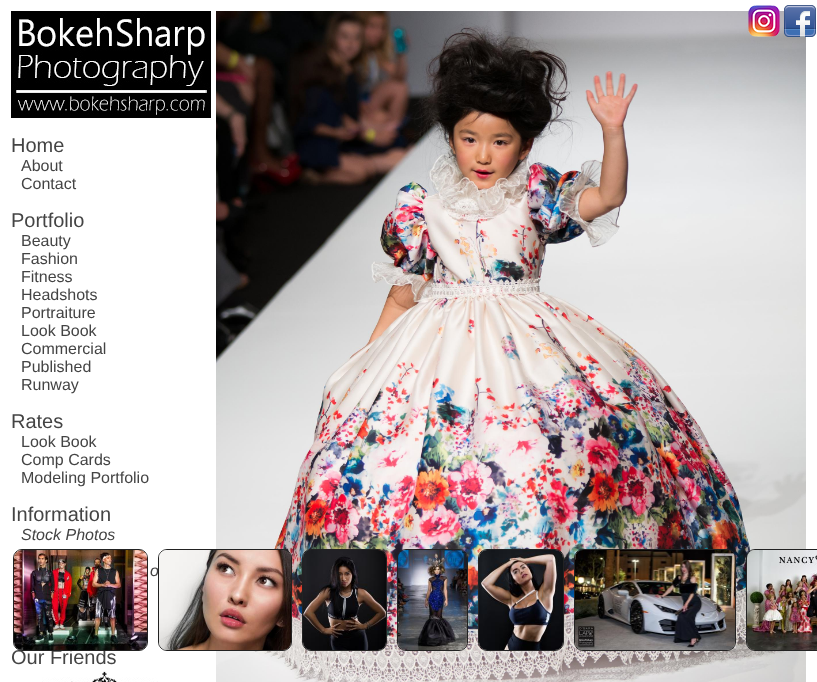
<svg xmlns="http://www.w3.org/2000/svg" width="817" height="682">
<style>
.a{font:20px Liberation Sans;fill:#444}
.b{font:16px Liberation Sans;fill:#444}
.c{font:italic 16px Liberation Sans;fill:#444}
</style>
<rect width="100%" height="100%" fill="#fff"/>
<image href="5.png" x="216" y="11" width="590" height="671"/>
<image href="1.png" x="748" y="5" width="32" height="32"/>
<image href="2.png" x="784" y="5" width="32" height="32"/>
<image href="3.png" x="11" y="11" width="200" height="107"/>
<image href="4.png" x="42" y="671" width="116" height="11"/>
<rect fill="none" stroke="#222" x="302.5" y="549.5" width="84" height="101" rx="8.5"/>
<rect fill="none" stroke="#222" x="397.5" y="549.5" width="70" height="101" rx="8.5"/>
<rect fill="none" stroke="#222" x="478.5" y="549.5" width="85" height="101" rx="8.5"/>
<rect fill="none" stroke="#222" x="574.5" y="549.5" width="161" height="101" rx="8.5"/>
<rect fill="none" stroke="#222" x="746.5" y="549.5" width="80" height="101" rx="8.5"/>
<image href="8.png" x="303" y="550" width="83" height="100"/>
<image href="9.png" x="398" y="550" width="69" height="100"/>
<image href="10.png" x="479" y="550" width="84" height="100"/>
<image href="11.png" x="575" y="550" width="160" height="100"/>
<image href="12.png" x="747" y="550" width="70" height="100"/>
<text class="a" x="11" y="152">Home</text>
<text class="b" x="21" y="171">About</text>
<text class="b" x="21" y="189">Contact</text>
<text class="a" x="11" y="227">Portfolio</text>
<text class="b" x="21" y="246">Beauty</text>
<text class="b" x="21" y="264">Fashion</text>
<text class="b" x="21" y="282">Fitness</text>
<text class="b" x="21" y="300">Headshots</text>
<text class="b" x="21" y="318">Portraiture</text>
<text class="b" x="21" y="336">Look Book</text>
<text class="b" x="21" y="354">Commercial</text>
<text class="b" x="21" y="372">Published</text>
<text class="b" x="21" y="390">Runway</text>
<text class="a" x="11" y="428">Rates</text>
<text class="b" x="21" y="447">Look Book</text>
<text class="b" x="21" y="465">Comp Cards</text>
<text class="b" x="21" y="483">Modeling Portfolio</text>
<text class="a" x="11" y="521">Information</text>
<text class="c" x="21" y="540">Stock Photos</text>
<text class="c" x="150" y="576">o</text>
<text class="a" x="11" y="664">Our Friends</text>
<rect fill="none" stroke="#222" x="13.5" y="549.5" width="134" height="101" rx="8.5"/>
<rect fill="none" stroke="#222" x="158.5" y="549.5" width="133" height="101" rx="8.5"/>
<image href="6.png" x="14" y="550" width="133" height="100"/>
<image href="7.png" x="159" y="550" width="132" height="100"/>
</svg>
